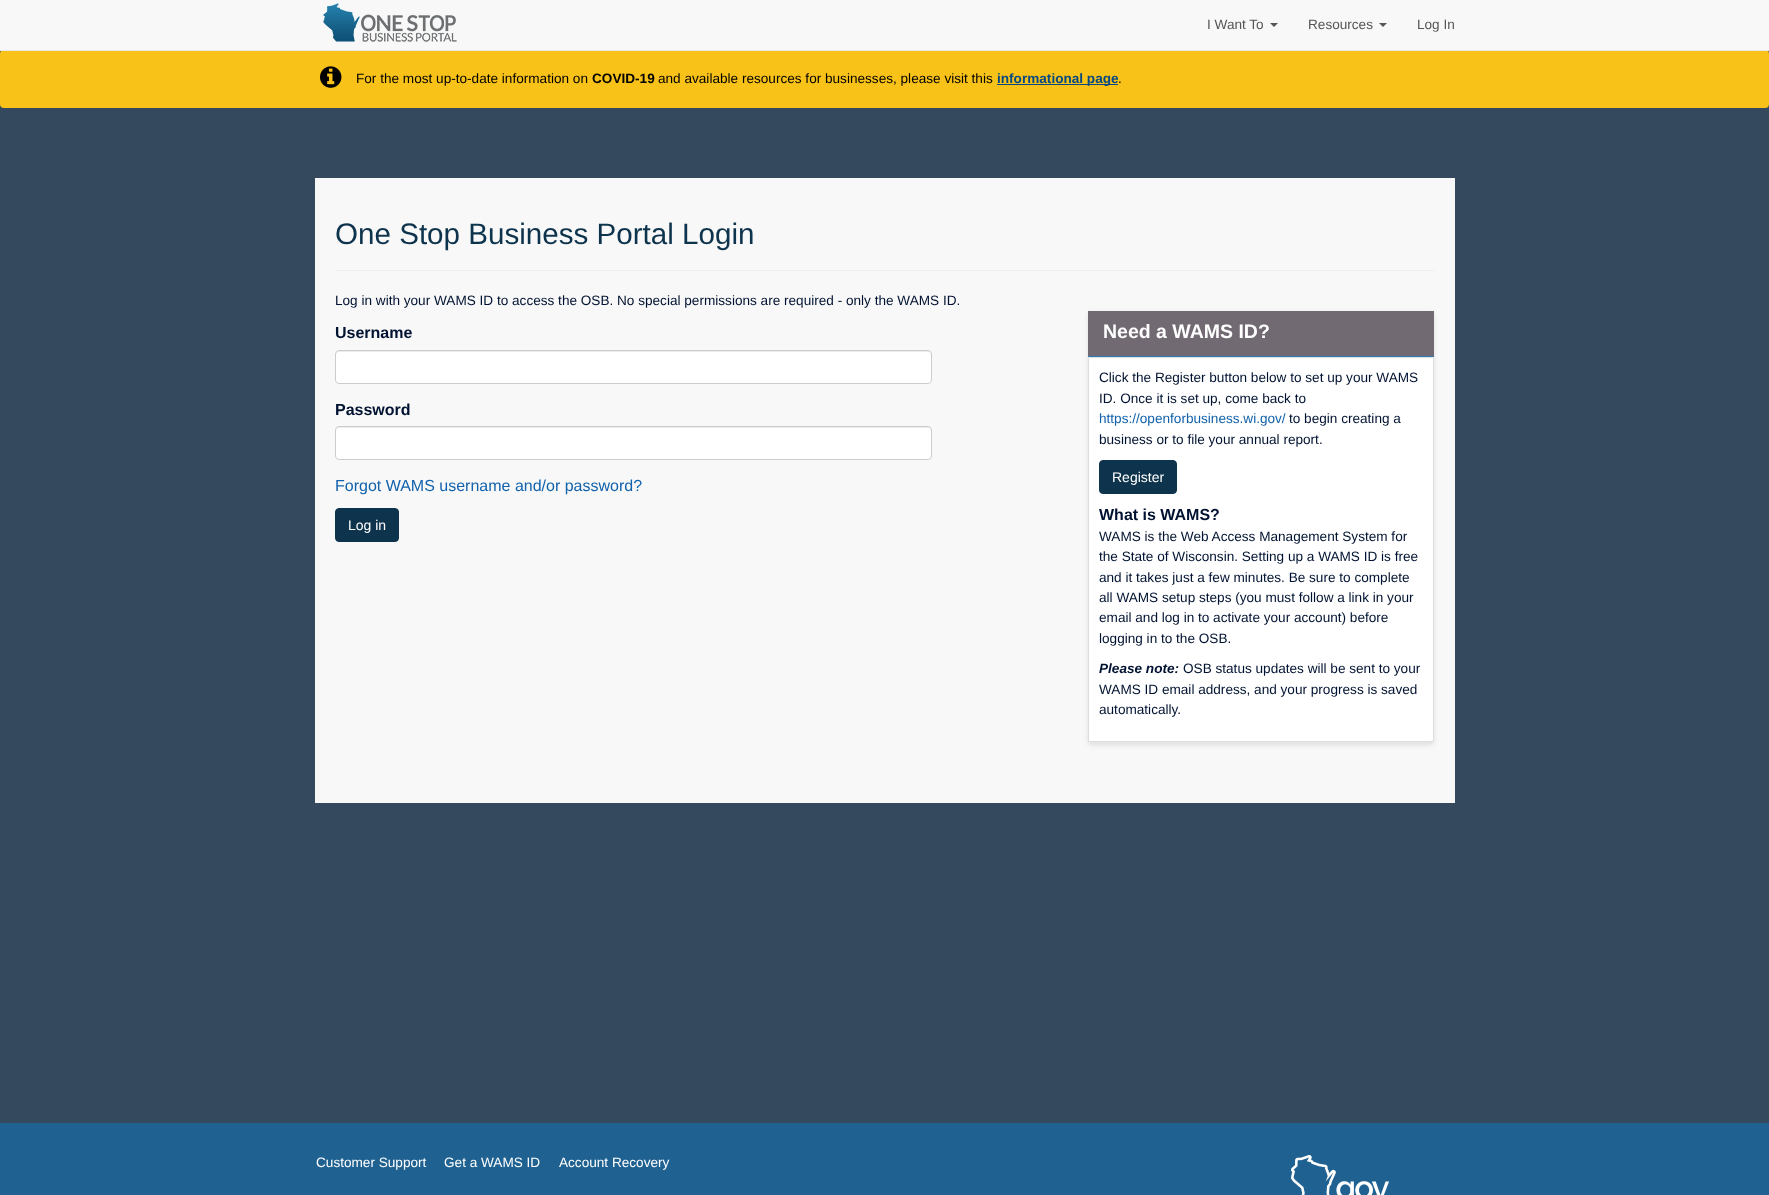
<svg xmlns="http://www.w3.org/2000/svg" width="1769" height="1195">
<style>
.a{font:13.6px Liberation Sans;fill:#555}
.b{font:13.6px Liberation Sans;fill:#000}
.c{font:bold 13.6px Liberation Sans;fill:#000}
.d{font:bold 13.6px Liberation Sans;fill:#064882}
.e{font:29.6px Liberation Sans;fill:#0e334c}
.f{font:13.6px Liberation Sans;fill:#001231}
.g{font:bold 16px Liberation Sans;fill:#001231}
.h{font:16px Liberation Sans;fill:#1162ac}
.i{font:14px Liberation Sans;fill:#fff}
.j{font:bold 19.5px Liberation Sans;fill:#fff}
.k{font:13.6px Liberation Sans;fill:#1162ac}
.l{font:italic bold 13.6px Liberation Sans;fill:#001231}
.m{font:13.6px Liberation Sans;fill:#fff}
</style>
<rect width="100%" height="100%" fill="#34495e"/>
<path fill="#f8f8f8" d="M0 0h1769v50H0z"/>
<rect fill="#f9c218" y="50" width="1769" height="58" rx="4"/>
<path fill="#e7e7e7" d="M0 50h1769v1H0z"/>
<image href="1.png" x="323" y="3" width="134" height="39"/>
<path fill="#555" d="M1270 23h8l-4 4z"/>
<path fill="#555" d="M1379 23h8l-4 4z"/>
<image href="2.png" x="320" y="66" width="22" height="22"/>
<path fill="#064882" d="M997 84h121v1H997z"/>
<path fill="#f8f8f8" d="M315 178h1140v625H315z"/>
<path fill="#eee" d="M335 270h1100v1H335z"/>
<rect fill="#fff" x="335" y="350" width="597" height="34" rx="4"/>
<path fill="#ececec" d="M339 352h589c2 0 3 1 3 3v-1c0-2-1-3-3-3h-589c-2 0-3 1-3 3v1c0-2 1-3 3-3z"/>
<rect fill="none" stroke="#ccc" x="335.5" y="350.5" width="596" height="33" rx="3.5"/>
<rect fill="#fff" x="335" y="426" width="597" height="34" rx="4"/>
<path fill="#ececec" d="M339 428h589c2 0 3 1 3 3v-1c0-2-1-3-3-3h-589c-2 0-3 1-3 3v1c0-2 1-3 3-3z"/>
<rect fill="none" stroke="#ccc" x="335.5" y="426.5" width="596" height="33" rx="3.5"/>
<rect fill="#0e334c" stroke="#0e334c" x="335.5" y="508.5" width="63" height="33" rx="3.5"/>
<rect fill="#0000001a" filter="blur(2.5px)" x="1088" y="313" width="346" height="432" rx="4"/>
<rect fill="#fff" x="1088" y="311" width="346" height="432" rx="4"/>
<path fill="#e6e6e6" d="M1090 742h342v1H1090z"/>
<path fill="#726a72" d="M1088 311h346v45H1088z"/>
<path fill="#337ab7" d="M1088 356h346v1H1088z"/>
<path fill="none" stroke="#ddd" d="M1088.5 357.5h345v384H1088.5z"/>
<rect fill="#0e334c" stroke="#0e334c" x="1099.5" y="460.5" width="77" height="33" rx="3.5"/>
<path fill="#1f6190" d="M0 1123h1769v72H0z"/>
<image href="3.png" x="1291" y="1155" width="98" height="40"/>
<text class="a" x="1207" y="29">I Want To</text>
<text class="a" x="1308" y="29">Resources</text>
<text class="a" x="1417" y="29">Log In</text>
<text class="b" x="356" y="83">For the most up-to-date information on</text>
<text class="c" x="592" y="83">COVID-19</text>
<text class="b" x="658" y="83">and available resources for businesses, please visit this</text>
<text class="d" x="997" y="83">informational page</text>
<text class="b" x="1118" y="83">.</text>
<text class="e" x="335" y="244">One Stop Business Portal Login</text>
<text class="f" x="335" y="305">Log in with your WAMS ID to access the OSB. No special permissions are required - only the WAMS ID.</text>
<text class="g" x="335" y="338">Username</text>
<text class="g" x="335" y="415">Password</text>
<text class="h" x="335" y="491">Forgot WAMS username and/or password?</text>
<text class="i" x="348" y="530">Log in</text>
<text class="j" x="1103" y="338">Need a WAMS ID?</text>
<text class="f" x="1099" y="382">Click the Register button below to set up your WAMS</text>
<text class="f" x="1099" y="403">ID. Once it is set up, come back to</text>
<text class="k" x="1099" y="423">https://openforbusiness.wi.gov/</text>
<text class="f" x="1289" y="423">to begin creating a</text>
<text class="f" x="1099" y="444">business or to file your annual report.</text>
<text class="i" x="1112" y="482">Register</text>
<text class="g" x="1099" y="520">What is WAMS?</text>
<text class="f" x="1099" y="541">WAMS is the Web Access Management System for</text>
<text class="f" x="1099" y="561">the State of Wisconsin. Setting up a WAMS ID is free</text>
<text class="f" x="1099" y="582">and it takes just a few minutes. Be sure to complete</text>
<text class="f" x="1099" y="602">all WAMS setup steps (you must follow a link in your</text>
<text class="f" x="1099" y="622">email and log in to activate your account) before</text>
<text class="f" x="1099" y="643">logging in to the OSB.</text>
<text class="l" x="1099" y="673">Please note:</text>
<text class="f" x="1183" y="673">OSB status updates will be sent to your</text>
<text class="f" x="1099" y="694">WAMS ID email address, and your progress is saved</text>
<text class="f" x="1099" y="714">automatically.</text>
<text class="m" x="316" y="1167">Customer Support</text>
<text class="m" x="444" y="1167">Get a WAMS ID</text>
<text class="m" x="559" y="1167">Account Recovery</text>
</svg>
